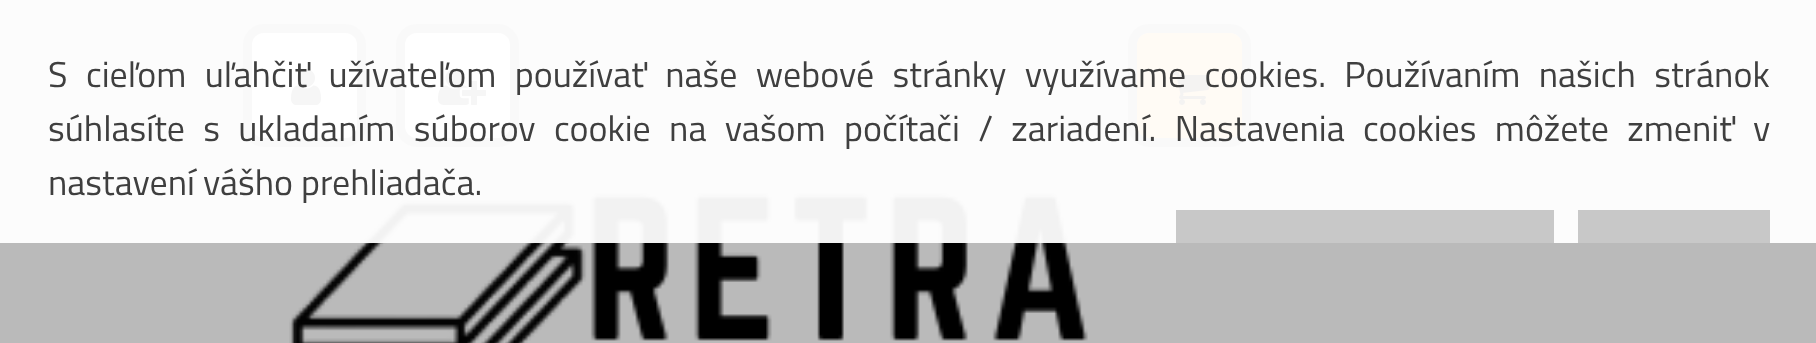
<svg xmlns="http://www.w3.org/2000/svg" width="1816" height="343">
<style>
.a{font:36px Titillium Web;fill:#3f3f3f}
</style>
<rect width="100%" height="100%" fill="#bababa"/>
<rect fill="none" stroke="#8c8c8c" stroke-width="9" x="247.5" y="28.5" width="114" height="114" rx="16.5"/>
<rect fill="#f7f7f7" x="252" y="33" width="105" height="105" rx="12"/>
<image href="1.png" x="291" y="69" width="30" height="36"/>
<rect fill="none" stroke="#8c8c8c" stroke-width="9" x="400.5" y="28.5" width="114" height="114" rx="16.5"/>
<rect fill="#f7f7f7" x="405" y="33" width="105" height="105" rx="12"/>
<image href="2.png" x="438" y="69" width="48" height="36"/>
<rect fill="none" stroke="#8c8c8c" stroke-width="9" x="1132.5" y="28.5" width="114" height="114" rx="16.5"/>
<rect fill="#ffa641" stroke="#ffa944" stroke-width="3" x="1138.5" y="34.5" width="102" height="102" rx="10.5"/>
<image href="3.png" x="1170" y="72" width="39" height="33"/>
<image href="4.png" x="289" y="193" width="799" height="150"/>
<path fill="#fffffff2" d="M0 0h1816v243H0z"/>
<path fill="#c8c8c8" d="M1176 210h378v33H1176z"/>
<path fill="#c8c8c8" d="M1578 210h192v33H1578z"/>
<text class="a" x="48" y="87" word-spacing="10.5">S cieľom uľahčiť užívateľom používať naše webové stránky využívame cookies. Používaním našich stránok</text>
<text class="a" x="48" y="141" word-spacing="10.4">súhlasíte s ukladaním súborov cookie na vašom počítači / zariadení. Nastavenia cookies môžete zmeniť v</text>
<text class="a" x="48" y="195">nastavení vášho prehliadača.</text>
</svg>
